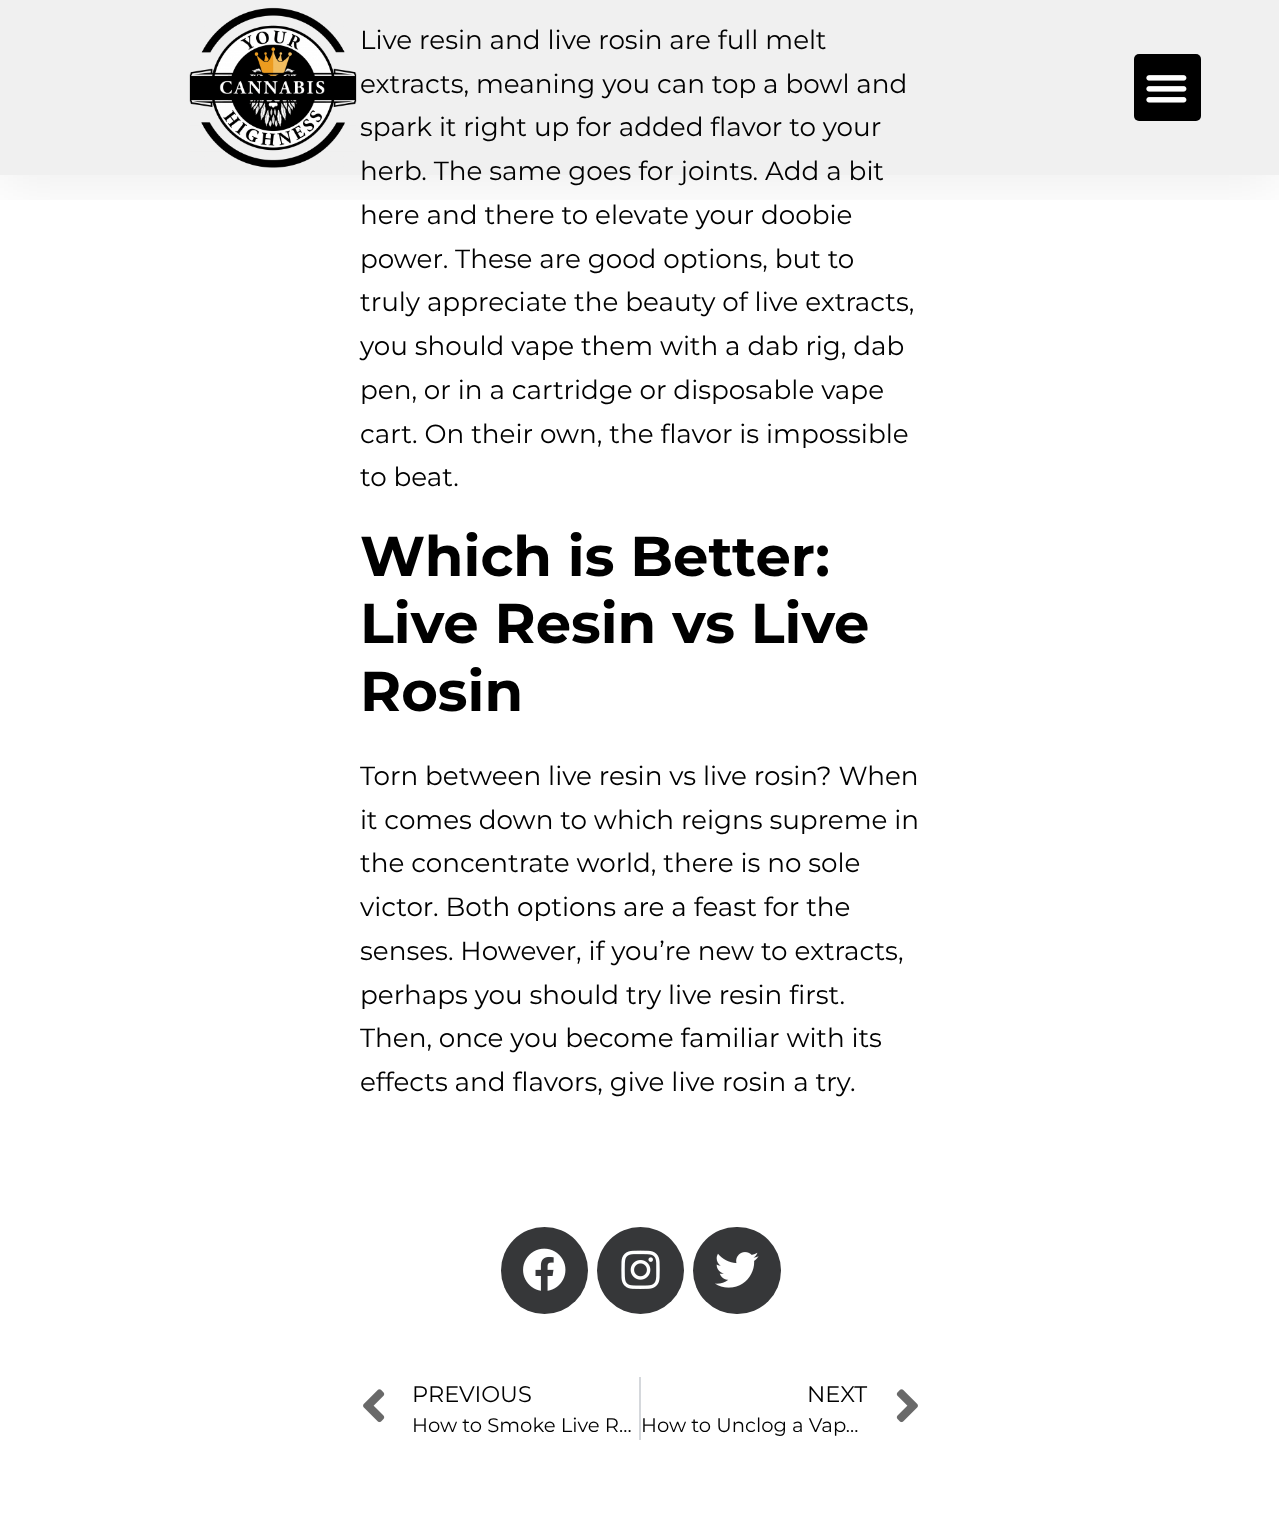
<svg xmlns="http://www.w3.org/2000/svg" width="1279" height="1516">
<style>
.a{font:26.25px Montserrat;fill:#000}
.b{font:bold 56px Montserrat;fill:#000}
.c{font:22.5px Montserrat;fill:#000}
.d{font:19.6px Montserrat;fill:#000}
</style>
<defs>
<clipPath id="clip1"><path d="M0 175h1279v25H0z"/></clipPath>
</defs>
<rect width="100%" height="100%" fill="#fff"/>
<g clip-path="url(#clip1)">
<path fill="#00000012" filter="blur(29px)" d="M-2 5h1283v179H-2z"/>
</g>
<path fill="#0000000f" d="M0 0h1279v175H0z"/>
<image href="1.png" x="189" y="7" width="168" height="161"/>
<rect fill="#000" x="1134" y="54" width="67" height="67" rx="5"/>
<image href="2.png" x="1146" y="75" width="41" height="28"/>
<circle fill="#363739" cx="544.5" cy="1270.5" r="43.5"/>
<image href="3.png" x="523" y="1248" width="43" height="43"/>
<circle fill="#363739" cx="640.5" cy="1270.5" r="43.5"/>
<image href="4.png" x="621" y="1250" width="39" height="39"/>
<rect fill="#363739" x="693" y="1227" width="88" height="87" rx="43.5"/>
<image href="5.png" x="715" y="1252" width="44" height="36"/>
<image href="6.png" x="363" y="1389" width="22" height="34"/>
<path fill="#d5d8dc" d="M639 1377h2v63H639z"/>
<image href="7.png" x="896" y="1389" width="22" height="34"/>
<text class="a" x="360" y="49">Live resin and live rosin are full melt</text>
<text class="a" x="360" y="93">extracts, meaning you can top a bowl and</text>
<text class="a" x="360" y="136">spark it right up for added flavor to your</text>
<text class="a" x="360" y="180">herb. The same goes for joints. Add a bit</text>
<text class="a" x="360" y="224">here and there to elevate your doobie</text>
<text class="a" x="360" y="268">power. These are good options, but to</text>
<text class="a" x="360" y="311">truly appreciate the beauty of live extracts,</text>
<text class="a" x="360" y="355">you should vape them with a dab rig, dab</text>
<text class="a" x="360" y="399">pen, or in a cartridge or disposable vape</text>
<text class="a" x="360" y="443">cart. On their own, the flavor is impossible</text>
<text class="a" x="360" y="486">to beat.</text>
<text class="b" x="360" y="576">Which is Better:</text>
<text class="b" x="360" y="643">Live Resin vs Live</text>
<text class="b" x="360" y="711">Rosin</text>
<text class="a" x="360" y="785">Torn between live resin vs live rosin? When</text>
<text class="a" x="360" y="829">it comes down to which reigns supreme in</text>
<text class="a" x="360" y="872">the concentrate world, there is no sole</text>
<text class="a" x="360" y="916">victor. Both options are a feast for the</text>
<text class="a" x="360" y="960">senses. However, if you’re new to extracts,</text>
<text class="a" x="360" y="1004">perhaps you should try live resin first.</text>
<text class="a" x="360" y="1047">Then, once you become familiar with its</text>
<text class="a" x="360" y="1091">effects and flavors, give live rosin a try.</text>
<text class="c" x="412" y="1402">PREVIOUS</text>
<text class="d" x="412" y="1432">How to Smoke Live R…</text>
<text class="c" x="807" y="1402">NEXT</text>
<text class="d" x="641" y="1432">How to Unclog a Vap…</text>
</svg>
